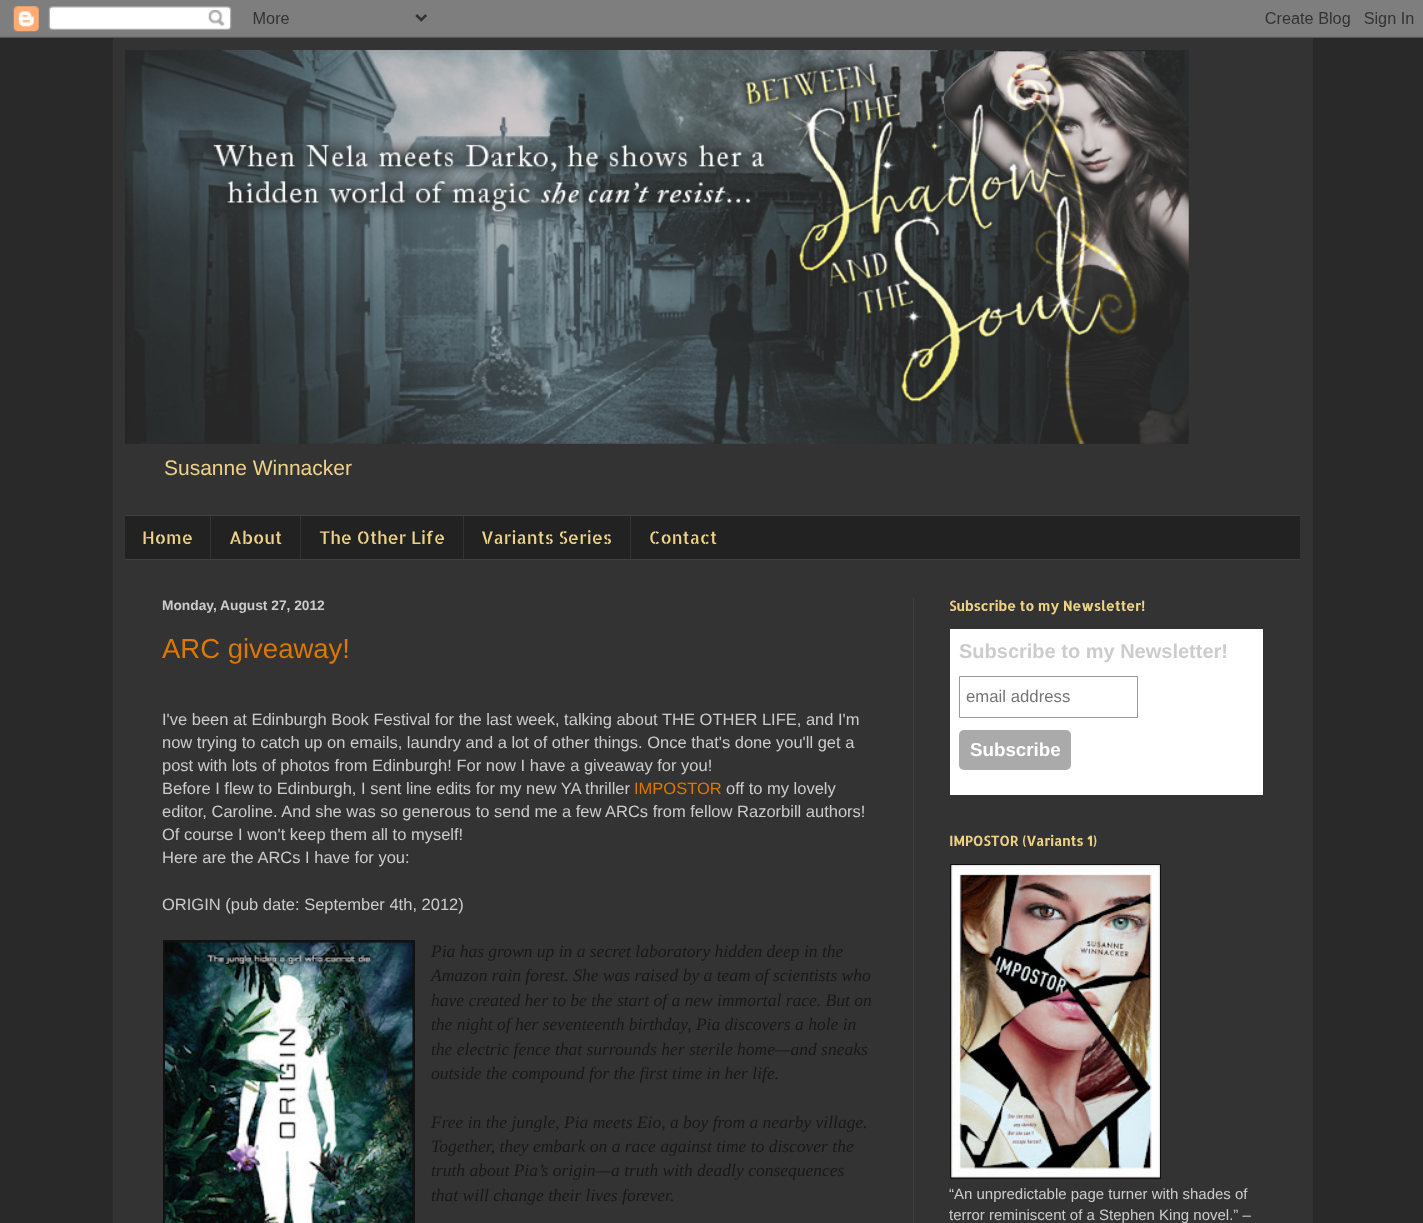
<svg xmlns="http://www.w3.org/2000/svg" width="1423" height="1223">
<style>
.a{font:21px Liberation Sans;fill:#eed386}
.b{font:17.5px Allerta Stencil;fill:#eed386}
.c{font:bold 13.75px Liberation Sans;fill:#ccc}
.d{font:27.5px Liberation Sans;fill:#d70}
.e{font:16.5px Liberation Sans;fill:#ccc}
.f{font:16.5px Liberation Sans;fill:#d70}
.g{font:italic 17.5px Liberation Serif;fill:#181818}
.h{font:bold 13.75px Allerta Stencil;fill:#eed386}
.i{font:bold 20px Liberation Sans;fill:#ccc}
.j{font:16.75px Liberation Sans;fill:#757575}
.k{font:bold 18.75px Liberation Sans;fill:#fff}
.l{font:15px Liberation Sans;fill:#ccc}
</style>
<rect width="100%" height="100%" fill="#292929"/>
<image href="1.png" x="0" y="0" width="1423" height="38"/>
<path fill="#333" d="M113 38h1200v1185H113z"/>
<image href="2.png" x="125" y="50" width="1064" height="394"/>
<path fill="#222" d="M125 516h1175v43H125z"/>
<path fill="#404040" d="M125 515h1175v1H125z"/>
<path fill="#404040" d="M125 559h1175v1H125z"/>
<path fill="#333" d="M210 516h1v43H210z"/>
<path fill="#333" d="M300 516h1v43H300z"/>
<path fill="#333" d="M463 516h1v43H463z"/>
<path fill="#333" d="M630 516h1v43H630z"/>
<path fill="#404040" d="M913 598h1v625H913z"/>
<path fill="#111" d="M163 940h252v283H163z"/>
<image href="3.png" x="165" y="942" width="248" height="281"/>
<path fill="#fff" d="M950 629h313v166H950z"/>
<path fill="none" stroke="#999" d="M959.5 676.5h178v41H959.5z"/>
<rect fill="#aaa" x="959" y="730" width="112" height="40" rx="5"/>
<path fill="#111" d="M950 864h211v315H950z"/>
<image href="4.png" x="951" y="865" width="209" height="313"/>
<text class="a" x="164" y="475">Susanne Winnacker</text>
<text class="b" x="142" y="544">Home</text>
<text class="b" x="229" y="544">About</text>
<text class="b" x="319" y="544">The Other Life</text>
<text class="b" x="481" y="544">Variants Series</text>
<text class="b" x="649" y="544">Contact</text>
<text class="c" x="162" y="610">Monday, August 27, 2012</text>
<text class="d" x="162" y="658">ARC giveaway!</text>
<text class="e" x="162" y="725">I've been at Edinburgh Book Festival for the last week, talking about THE OTHER LIFE, and I'm</text>
<text class="e" x="162" y="748">now trying to catch up on emails, laundry and a lot of other things. Once that's done you'll get a</text>
<text class="e" x="162" y="771">post with lots of photos from Edinburgh! For now I have a giveaway for you!</text>
<text class="e" x="162" y="794">Before I flew to Edinburgh, I sent line edits for my new YA thriller</text>
<text class="f" x="634" y="794">IMPOSTOR</text>
<text class="e" x="726" y="794">off to my lovely</text>
<text class="e" x="162" y="817">editor, Caroline. And she was so generous to send me a few ARCs from fellow Razorbill authors!</text>
<text class="e" x="162" y="840">Of course I won't keep them all to myself!</text>
<text class="e" x="162" y="863">Here are the ARCs I have for you:</text>
<text class="e" x="162" y="910">ORIGIN (pub date: September 4th, 2012)</text>
<text class="g" x="431" y="957">Pia has grown up in a secret laboratory hidden deep in the</text>
<text class="g" x="431" y="981">Amazon rain forest. She was raised by a team of scientists who</text>
<text class="g" x="431" y="1006">have created her to be the start of a new immortal race. But on</text>
<text class="g" x="431" y="1030">the night of her seventeenth birthday, Pia discovers a hole in</text>
<text class="g" x="431" y="1055">the electric fence that surrounds her sterile home—and sneaks</text>
<text class="g" x="431" y="1079">outside the compound for the first time in her life.</text>
<text class="g" x="431" y="1128">Free in the jungle, Pia meets Eio, a boy from a nearby village.</text>
<text class="g" x="431" y="1152">Together, they embark on a race against time to discover the</text>
<text class="g" x="431" y="1176">truth about Pia’s origin—a truth with deadly consequences</text>
<text class="g" x="431" y="1201">that will change their lives forever.</text>
<text class="h" x="949" y="611">Subscribe to my Newsletter!</text>
<text class="i" x="959" y="658">Subscribe to my Newsletter!</text>
<text class="j" x="966" y="702">email address</text>
<text class="k" x="970" y="756">Subscribe</text>
<text class="h" x="949" y="846">IMPOSTOR (Variants 1)</text>
<text class="l" x="949" y="1199">“An unpredictable page turner with shades of</text>
<text class="l" x="949" y="1220">terror reminiscent of a Stephen King novel.” –</text>
</svg>
